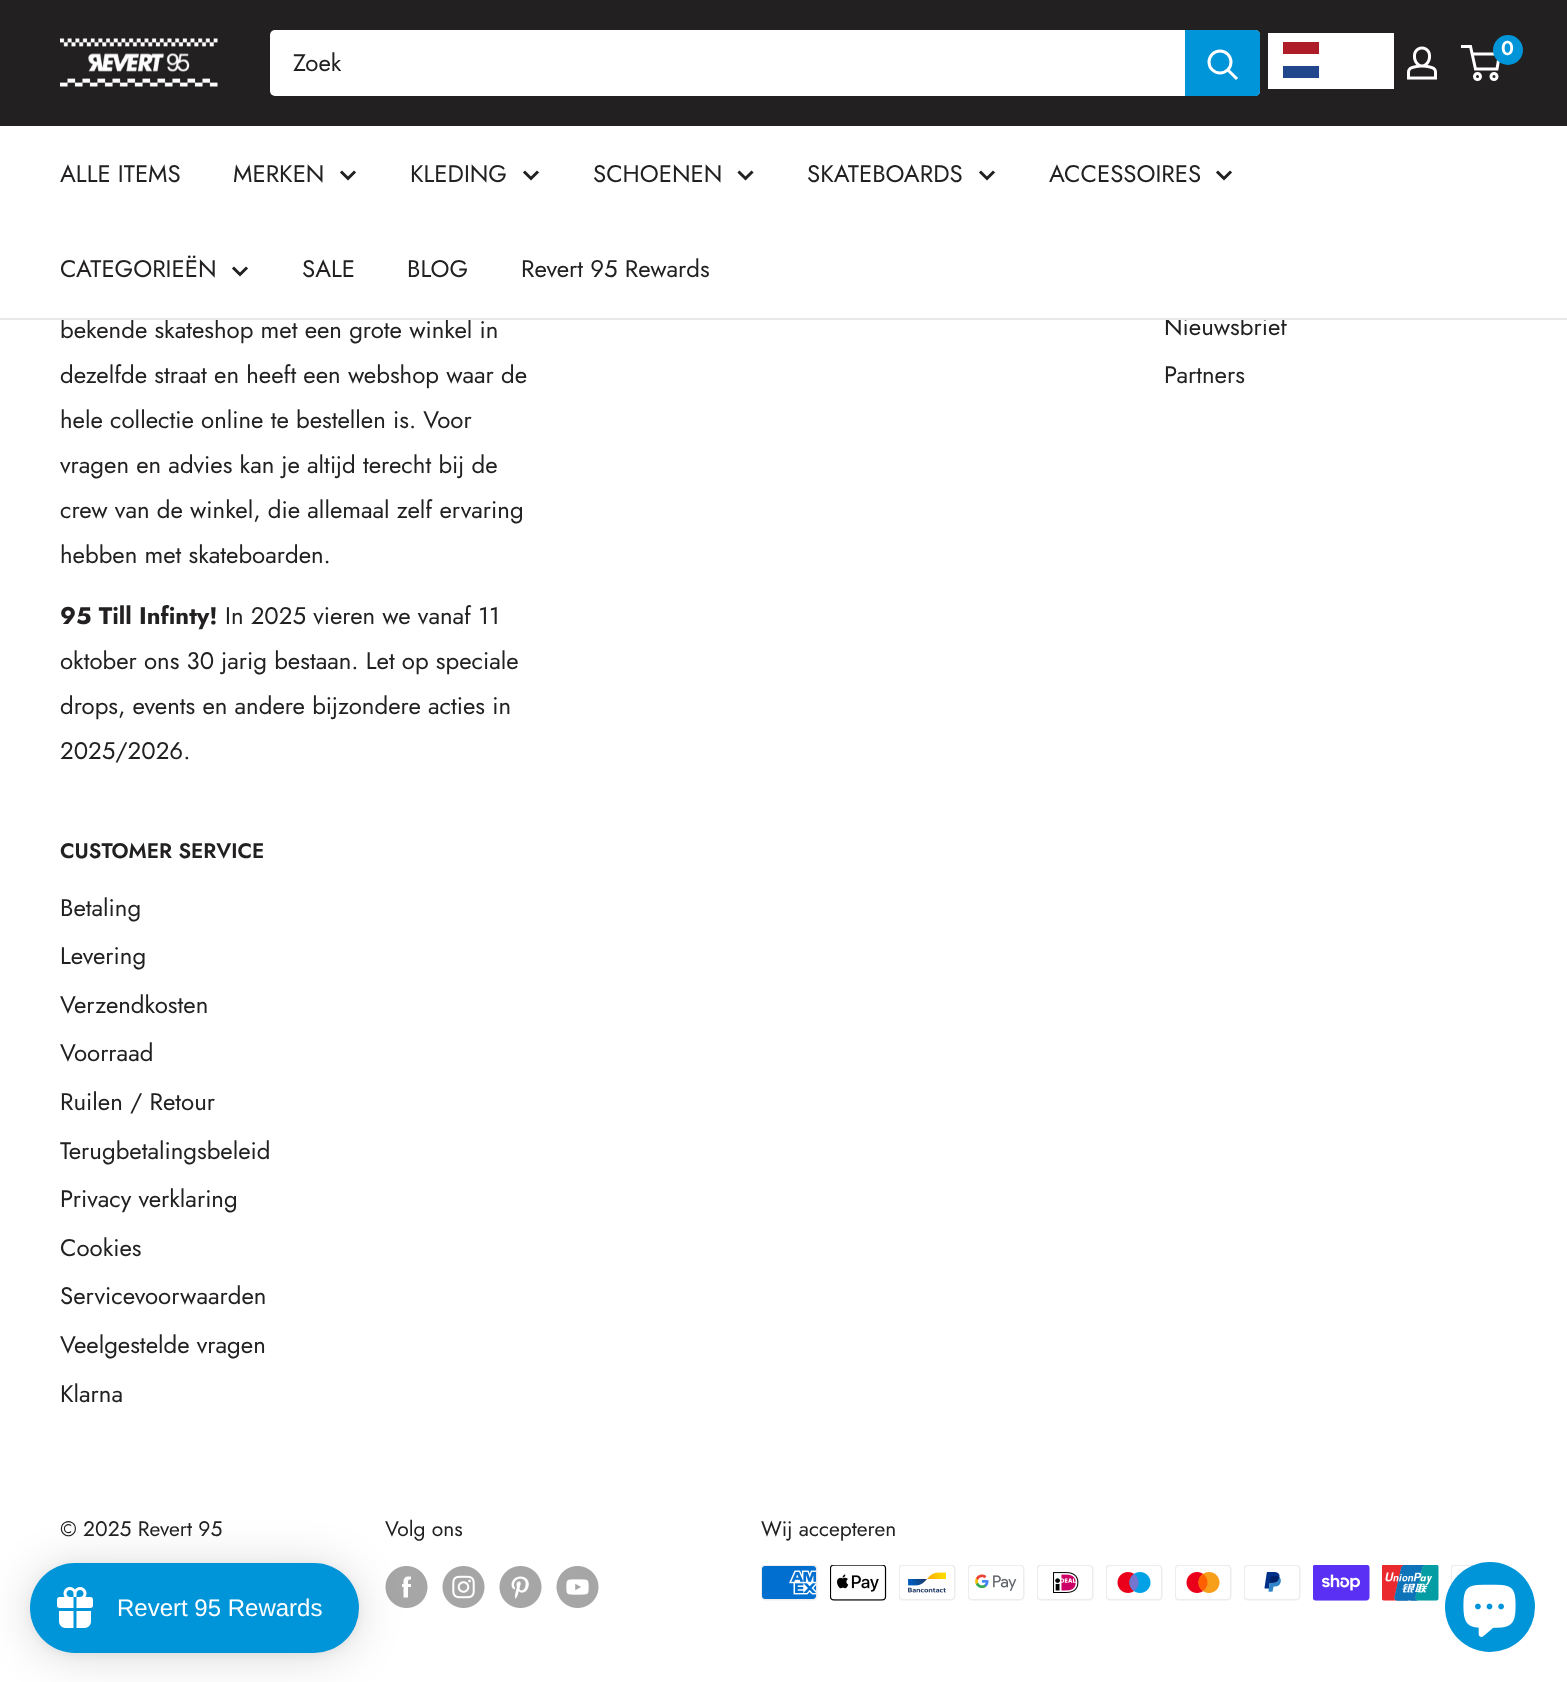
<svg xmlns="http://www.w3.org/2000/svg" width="1567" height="1682">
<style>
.a{font:600 20px Jost;fill:#fff}
.b{font:24px Jost;fill:#222021}
.c{font:bold 24px Jost;fill:#222021}
.d{font:600 21px Jost;fill:#222021}
.e{font:21px Jost;fill:#222021}
.f{font:24px Liberation Sans;fill:#fff}
</style>
<rect width="100%" height="100%" fill="#fff"/>
<path fill="#222021" d="M0 0h1567v126H0z"/>
<image href="1.png" x="60" y="38" width="158" height="49"/>
<path fill="#fff" d="M1268 33h126v56H1268z"/>
<path fill="#ae1c28" d="M1283 42h36v12H1283z"/>
<path fill="#21468b" d="M1283 66h36v12H1283z"/>
<image href="2.png" x="1407" y="46" width="30" height="34"/>
<circle fill="none" stroke="#fff" stroke-width="3" cx="1477.5" cy="76.5" r="3"/>
<circle fill="none" stroke="#fff" stroke-width="3" cx="1494" cy="76.5" r="3"/>
<path fill="none" stroke="#fff" stroke-width="3" d="M1472 54h27.5l-2.5 15h-21.5l-5-22.5h-9.5"/>
<circle fill="#0094d8" cx="1508" cy="50" r="15"/>
<rect fill="#fff" x="270" y="30" width="990" height="66" rx="5"/>
<path fill="#0094d8" d="M1185 30h70c3 0 5 2 5 5v56c0 3-2 5-5 5h-70z"/>
<path fill="none" stroke="#fff" stroke-width="3" stroke-linecap="square" d="M1236 78l-7.5-7.5"/>
<circle fill="none" stroke="#fff" stroke-width="3" cx="1220" cy="62" r="11"/>
<path fill="none" stroke="#222021" stroke-width="3" stroke-linecap="square" d="M354 172.5l-6 6l-6-6"/>
<path fill="none" stroke="#222021" stroke-width="3" stroke-linecap="square" d="M537 172.5l-6 6l-6-6"/>
<path fill="none" stroke="#222021" stroke-width="3" stroke-linecap="square" d="M751.5 172.5l-6 6l-6-6"/>
<path fill="none" stroke="#222021" stroke-width="3" stroke-linecap="square" d="M993 172.5l-6 6l-6-6"/>
<path fill="none" stroke="#222021" stroke-width="3" stroke-linecap="square" d="M1230 172.5l-6 6l-6-6"/>
<path fill="none" stroke="#222021" stroke-width="3" stroke-linecap="square" d="M246 268.5l-6 6l-6-6"/>
<image href="3.png" x="385" y="1566" width="43" height="42"/>
<image href="4.png" x="442" y="1566" width="43" height="42"/>
<image href="5.png" x="499" y="1566" width="43" height="42"/>
<image href="6.png" x="556" y="1566" width="43" height="42"/>
<image href="7.png" x="761" y="1565" width="57" height="36"/>
<image href="8.png" x="830" y="1565" width="57" height="36"/>
<image href="9.png" x="899" y="1565" width="57" height="36"/>
<image href="10.png" x="968" y="1565" width="57" height="36"/>
<image href="11.png" x="1037" y="1565" width="57" height="36"/>
<image href="12.png" x="1106" y="1565" width="57" height="36"/>
<image href="13.png" x="1175" y="1565" width="57" height="36"/>
<image href="14.png" x="1244" y="1565" width="57" height="36"/>
<image href="15.png" x="1313" y="1565" width="57" height="36"/>
<image href="16.png" x="1382" y="1565" width="57" height="36"/>
<image href="17.png" x="1451" y="1565" width="23" height="20"/>
<rect fill="#00000026" filter="blur(22.5px)" x="30" y="1566" width="329" height="90" rx="45"/>
<rect fill="#0000000d" filter="blur(4.5px)" x="30" y="1565" width="329" height="90" rx="45"/>
<rect fill="#0094d8" x="30" y="1563" width="329" height="90" rx="45"/>
<image href="18.png" x="57" y="1587" width="36" height="41"/>
<circle fill="#0094d8" cx="1490" cy="1607" r="45"/>
<image href="19.png" x="1463" y="1584" width="53" height="53"/>
<text class="a" x="1501" y="55">0</text>
<text class="b" x="293" y="71">Zoek</text>
<text class="b" x="60" y="182">ALLE ITEMS</text>
<text class="b" x="233" y="182">MERKEN</text>
<text class="b" x="410" y="182">KLEDING</text>
<text class="b" x="593" y="182">SCHOENEN</text>
<text class="b" x="807" y="182">SKATEBOARDS</text>
<text class="b" x="1049" y="182">ACCESSOIRES</text>
<text class="b" x="60" y="277">CATEGORIEËN</text>
<text class="b" x="302" y="277">SALE</text>
<text class="b" x="407" y="277">BLOG</text>
<text class="b" x="521" y="277">Revert 95 Rewards</text>
<text class="b" x="60" y="338">bekende skateshop met een grote winkel in</text>
<text class="b" x="60" y="383">dezelfde straat en heeft een webshop waar de</text>
<text class="b" x="60" y="428">hele collectie online te bestellen is. Voor</text>
<text class="b" x="60" y="473">vragen en advies kan je altijd terecht bij de</text>
<text class="b" x="60" y="518">crew van de winkel, die allemaal zelf ervaring</text>
<text class="b" x="60" y="563">hebben met skateboarden.</text>
<text class="c" x="60" y="624">95 Till Infinty!</text>
<text class="b" x="225" y="624">In 2025 vieren we vanaf 11</text>
<text class="b" x="60" y="669">oktober ons 30 jarig bestaan. Let op speciale</text>
<text class="b" x="60" y="714">drops, events en andere bijzondere acties in</text>
<text class="b" x="60" y="759">2025/2026.</text>
<text class="b" x="1164" y="335">Nieuwsbrief</text>
<path fill="#e8e8e8" d="M0 318h1567v2H0z"/>
<path fill="#fff" d="M1165 316h123v2H1165z"/>
<text class="b" x="1164" y="383">Partners</text>
<text class="d" x="60" y="858">CUSTOMER SERVICE</text>
<text class="b" x="60" y="916">Betaling</text>
<text class="b" x="60" y="964">Levering</text>
<text class="b" x="60" y="1013">Verzendkosten</text>
<text class="b" x="60" y="1061">Voorraad</text>
<text class="b" x="60" y="1110">Ruilen / Retour</text>
<text class="b" x="60" y="1159">Terugbetalingsbeleid</text>
<text class="b" x="60" y="1207">Privacy verklaring</text>
<text class="b" x="60" y="1256">Cookies</text>
<text class="b" x="60" y="1304">Servicevoorwaarden</text>
<text class="b" x="60" y="1353">Veelgestelde vragen</text>
<text class="b" x="60" y="1402">Klarna</text>
<text class="e" x="60" y="1536">© 2025 Revert 95</text>
<text class="e" x="385" y="1536">Volg ons</text>
<text class="e" x="761" y="1536">Wij accepteren</text>
<text class="f" x="117" y="1616">Revert 95 Rewards</text>
</svg>
